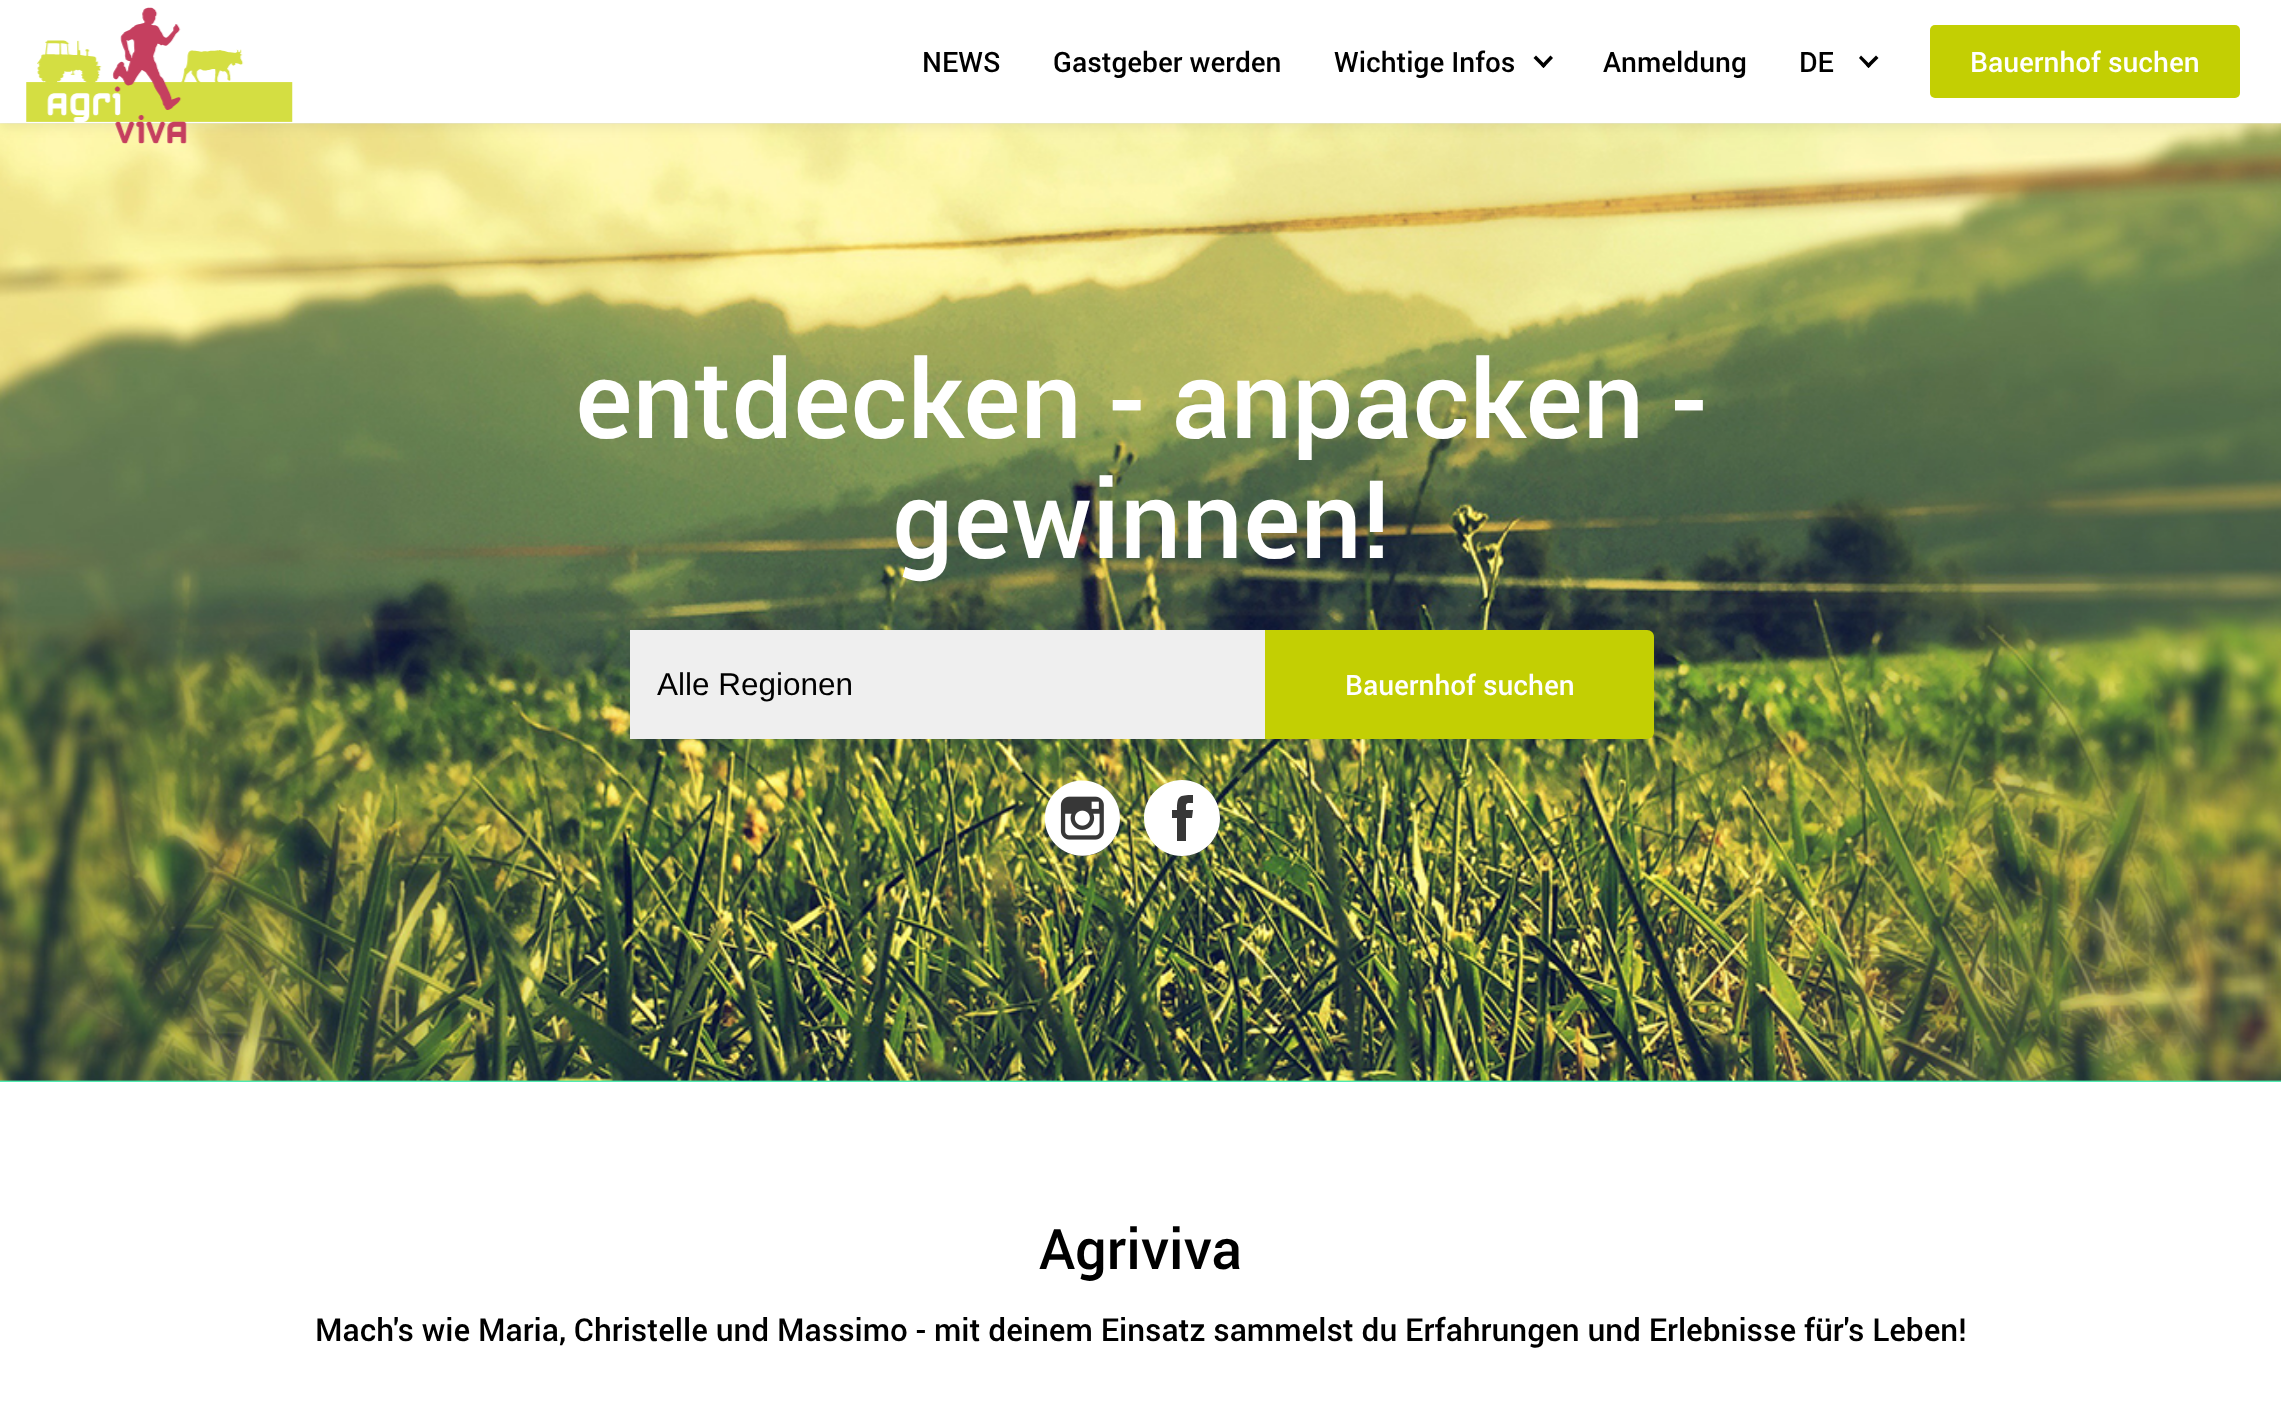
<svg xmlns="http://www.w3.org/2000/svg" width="2281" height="1405">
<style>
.a{font:500 28px Roboto;fill:#000}
.b{font:500 28px Roboto;fill:#fff}
.c{font:500 108.5px Roboto;fill:#fff}
.d{font:31.5px Liberation Sans;fill:#000}
.e{font:500 56px Roboto;fill:#000}
.f{font:500 31.5px Roboto;fill:#000}
</style>
<defs>
<linearGradient id="g1" gradientUnits="userSpaceOnUse" x1="1141" y1="1081" x2="1141" y2="123"><stop offset="0" stop-color="#4febb0"/><stop offset="1" stop-color="#d4dd42"/></linearGradient>
</defs>
<rect width="100%" height="100%" fill="#fff"/>
<path fill="#eceeef" d="M0 123h2281v1H0z"/>
<path fill="url(#g1)" d="M0 1080h2281v2H0z"/>
<image href="2.png" x="0" y="123" width="2281" height="958"/>
<path fill="#0000000f" filter="blur(6px)" d="M0 5h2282v123H0z"/>
<path fill="#fff" d="M0 0h2281v123H0z"/>
<image href="1.png" x="26" y="7" width="267" height="137"/>
<path fill="#000" d="M1550.5 55.5l2.5 2.5l-9.5 10l-2.5-2.5z"/>
<path fill="#000" d="M1536 55.5l10 10l-2.5 2.5l-10-10z"/>
<path fill="#000" d="M1876 55.5l2.5 2.5l-10 10l-2.5-2.5z"/>
<path fill="#000" d="M1861 55.5l10 10l-2.5 2.5l-9.5-10z"/>
<rect fill="#c3cf03" x="1930" y="25" width="310" height="73" rx="5"/>
<path fill="#efefef" d="M630 630h635v109H630z"/>
<path fill="#c3cf03" d="M1265 630h382c4 0 7 3 7 7v95c0 4-3 7-7 7h-382z"/>
<circle fill="#373737" cx="1082.5" cy="818.5" r="37.5"/>
<image href="3.png" x="1044" y="780" width="76" height="76"/>
<circle fill="#373737" cx="1182.5" cy="818.5" r="37.5"/>
<path fill="#fff" d="M1182 780c21 0 38 17 38 38c0 21-17 38-38 38c-21 0-38-17-38-38c0-21 17-38 38-38zm10 38l1-8h-7c0-7-1-7 7-7v-8c-14 0-16 1-16 15h-5v8h5v23h9v-23z"/>
<text class="a" x="922" y="72">NEWS</text>
<text class="a" x="1053" y="72">Gastgeber werden</text>
<text class="a" x="1334" y="72">Wichtige Infos</text>
<text class="a" x="1603" y="72">Anmeldung</text>
<text class="a" x="1799" y="72">DE</text>
<text class="b" x="1970" y="72">Bauernhof suchen</text>
<text class="c" x="575" y="438">entdecken - anpacken -</text>
<text class="c" x="892" y="558">gewinnen!</text>
<text class="d" x="657" y="695">Alle Regionen</text>
<text class="b" x="1345" y="695">Bauernhof suchen</text>
<text class="e" x="1039" y="1269">Agriviva</text>
<text class="f" x="315" y="1341">Mach's wie Maria, Christelle und Massimo - mit deinem Einsatz sammelst du Erfahrungen und Erlebnisse für's Leben!</text>
</svg>
